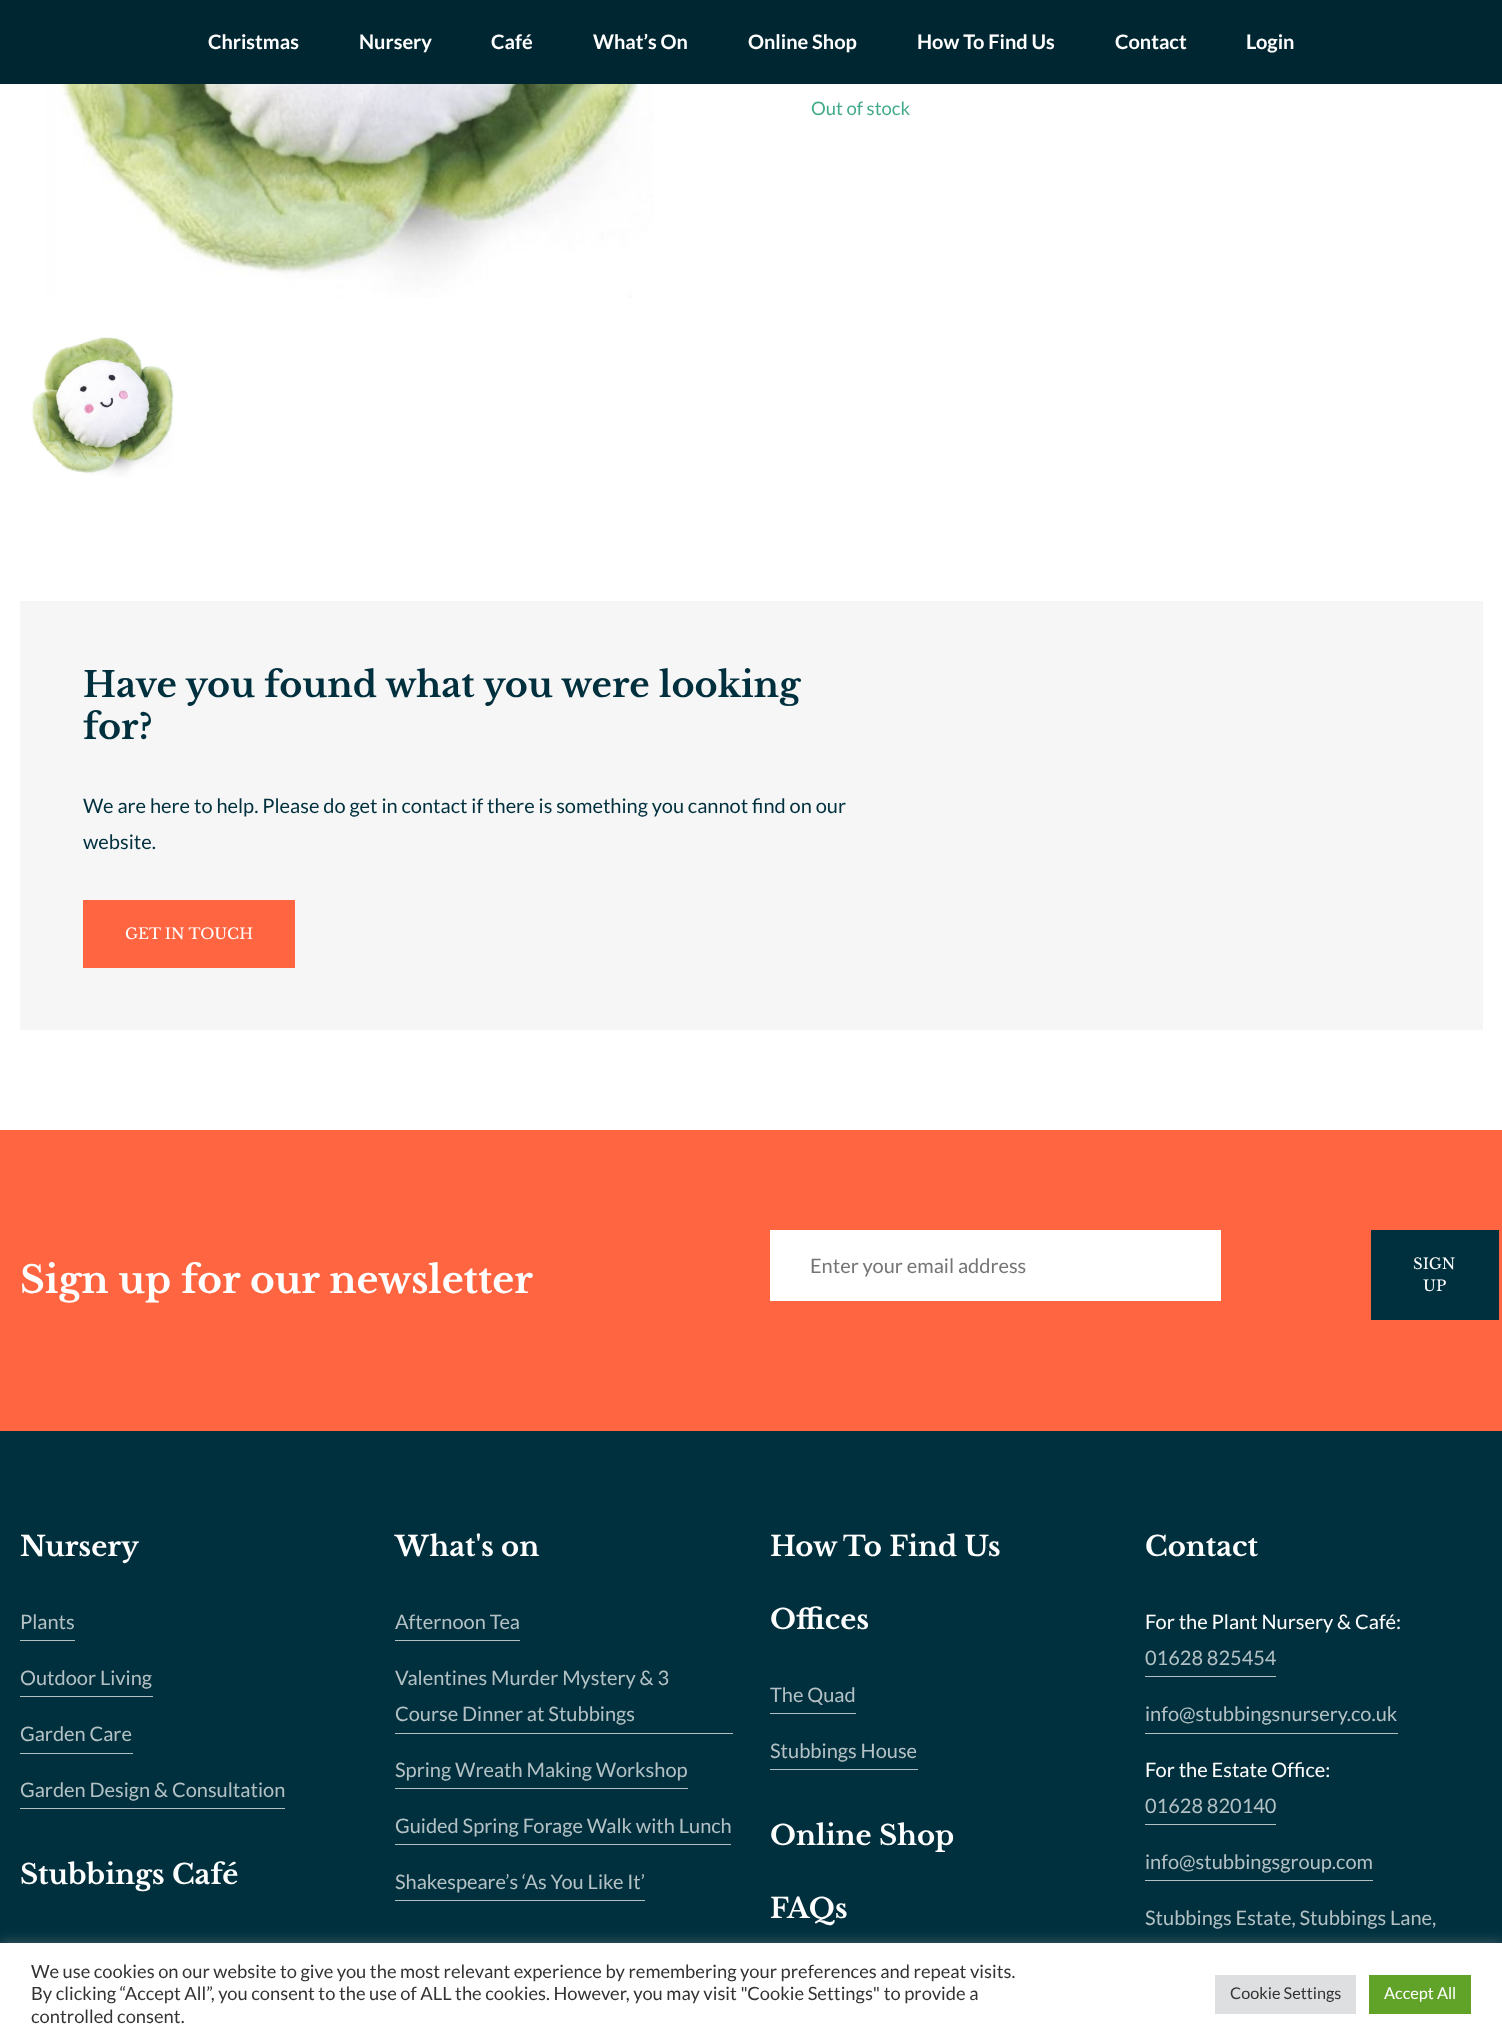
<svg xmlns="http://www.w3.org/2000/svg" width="1502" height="2044">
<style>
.a{font:bold 20px Lato;fill:#fff}
.b{font:18.5px Lato;fill:#43aa8b}
.c{font:bold 35px Libre Baskerville;fill:#00303e}
.d{font:20px Lato;fill:#00303e}
.e{font:15px Libre Baskerville;fill:#fff}
.f{font:bold 37.5px Libre Baskerville;fill:#fff}
.g{font:20px Lato;fill:#757575}
.h{font:bold 27.5px Libre Baskerville;fill:#fff}
.i{font:20px Lato;fill:#b3c1c5}
.j{font:20px Lato;fill:#fff}
.k{font:18.33px Lato;fill:#333}
.l{font:16.25px Lato;fill:#333}
.m{font:16.25px Lato;fill:#fff}
</style>
<rect width="100%" height="100%" fill="#fff"/>
<path fill="#002631" d="M0 0h1502v84H0z"/>
<image href="1.png" x="46" y="84" width="608" height="214"/>
<image href="2.png" x="31" y="337" width="143" height="140"/>
<path fill="#f6f6f6" d="M20 601h1463v429H20z"/>
<path fill="#ff6541" d="M83 900h212v68H83z"/>
<path fill="#ff6541" d="M0 1130h1502v301H0z"/>
<path fill="#fff" d="M770 1230h451v71H770z"/>
<path fill="#00303e" d="M1371 1230h128v90H1371z"/>
<path fill="#00303e" d="M0 1431h1502v512H0z"/>
<path fill="#b3c1c5" d="M20 1640h55v1H20z"/>
<path fill="#b3c1c5" d="M20 1696h133v1H20z"/>
<path fill="#b3c1c5" d="M20 1753h113v1H20z"/>
<path fill="#b3c1c5" d="M20 1808h265v1H20z"/>
<path fill="#b3c1c5" d="M395 1640h125v1H395z"/>
<path fill="#b3c1c5" d="M395 1733h338v1H395z"/>
<path fill="#b3c1c5" d="M395 1788h293v1H395z"/>
<path fill="#b3c1c5" d="M395 1844h336v1H395z"/>
<path fill="#b3c1c5" d="M395 1900h250v1H395z"/>
<path fill="#b3c1c5" d="M770 1713h86v1H770z"/>
<path fill="#b3c1c5" d="M770 1769h148v1H770z"/>
<path fill="#b3c1c5" d="M1145 1676h131v1H1145z"/>
<path fill="#b3c1c5" d="M1145 1733h253v1H1145z"/>
<path fill="#b3c1c5" d="M1145 1824h131v1H1145z"/>
<path fill="#b3c1c5" d="M1145 1880h228v1H1145z"/>
<path fill="#acabab4d" filter="blur(6px)" d="M0 1941h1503v103H0z"/>
<path fill="#fff" d="M0 1943h1502v101H0z"/>
<path fill="#dedfe0" d="M1215 1975h141v39H1215z"/>
<path fill="#61a229" d="M1369 1975h102v39H1369z"/>
<text class="a" x="208" y="49">Christmas</text>
<text class="a" x="359" y="49">Nursery</text>
<text class="a" x="491" y="49">Café</text>
<text class="a" x="593" y="49">What’s On</text>
<text class="a" x="748" y="49">Online Shop</text>
<text class="a" x="917" y="49">How To Find Us</text>
<text class="a" x="1115" y="49">Contact</text>
<text class="a" x="1246" y="49">Login</text>
<text class="b" x="811" y="115">Out of stock</text>
<text class="c" x="83" y="697">Have you found what you were looking</text>
<text class="c" x="83" y="739">for?</text>
<text class="d" x="83" y="813">We are here to help. Please do get in contact if there is something you cannot find on our</text>
<text class="d" x="83" y="849">website.</text>
<text class="e" x="125" y="939">GET IN TOUCH</text>
<text class="f" x="20" y="1293">Sign up for our newsletter</text>
<text class="g" x="810" y="1273">Enter your email address</text>
<text class="e" x="1413" y="1269">SIGN</text>
<text class="e" x="1423" y="1291">UP</text>
<text class="h" x="20" y="1556">Nursery</text>
<text class="i" x="20" y="1629">Plants</text>
<text class="i" x="20" y="1685">Outdoor Living</text>
<text class="i" x="20" y="1741">Garden Care</text>
<text class="i" x="20" y="1797">Garden Design &amp; Consultation</text>
<text class="h" x="20" y="1884">Stubbings Café</text>
<text class="h" x="395" y="1556">What's on</text>
<text class="i" x="395" y="1629">Afternoon Tea</text>
<text class="i" x="395" y="1685">Valentines Murder Mystery &amp; 3</text>
<text class="i" x="395" y="1721">Course Dinner at Stubbings</text>
<text class="i" x="395" y="1777">Spring Wreath Making Workshop</text>
<text class="i" x="395" y="1833">Guided Spring Forage Walk with Lunch</text>
<text class="i" x="395" y="1889">Shakespeare’s ‘As You Like It’</text>
<text class="h" x="770" y="1556">How To Find Us</text>
<text class="h" x="770" y="1629">Offices</text>
<text class="i" x="770" y="1702">The Quad</text>
<text class="i" x="770" y="1758">Stubbings House</text>
<text class="h" x="770" y="1845">Online Shop</text>
<text class="h" x="770" y="1918">FAQs</text>
<text class="h" x="1145" y="1556">Contact</text>
<text class="j" x="1145" y="1629">For the Plant Nursery &amp; Café:</text>
<text class="i" x="1145" y="1665">01628 825454</text>
<text class="i" x="1145" y="1721">info@stubbingsnursery.co.uk</text>
<text class="j" x="1145" y="1777">For the Estate Office:</text>
<text class="i" x="1145" y="1813">01628 820140</text>
<text class="i" x="1145" y="1869">info@stubbingsgroup.com</text>
<text class="i" x="1145" y="1925">Stubbings Estate, Stubbings Lane,</text>
<text class="k" x="31" y="1978">We use cookies on our website to give you the most relevant experience by remembering your preferences and repeat visits.</text>
<text class="k" x="31" y="2000">By clicking “Accept All”, you consent to the use of ALL the cookies. However, you may visit "Cookie Settings" to provide a</text>
<text class="k" x="31" y="2023">controlled consent.</text>
<text class="l" x="1230" y="1999">Cookie Settings</text>
<text class="m" x="1384" y="1999">Accept All</text>
</svg>
